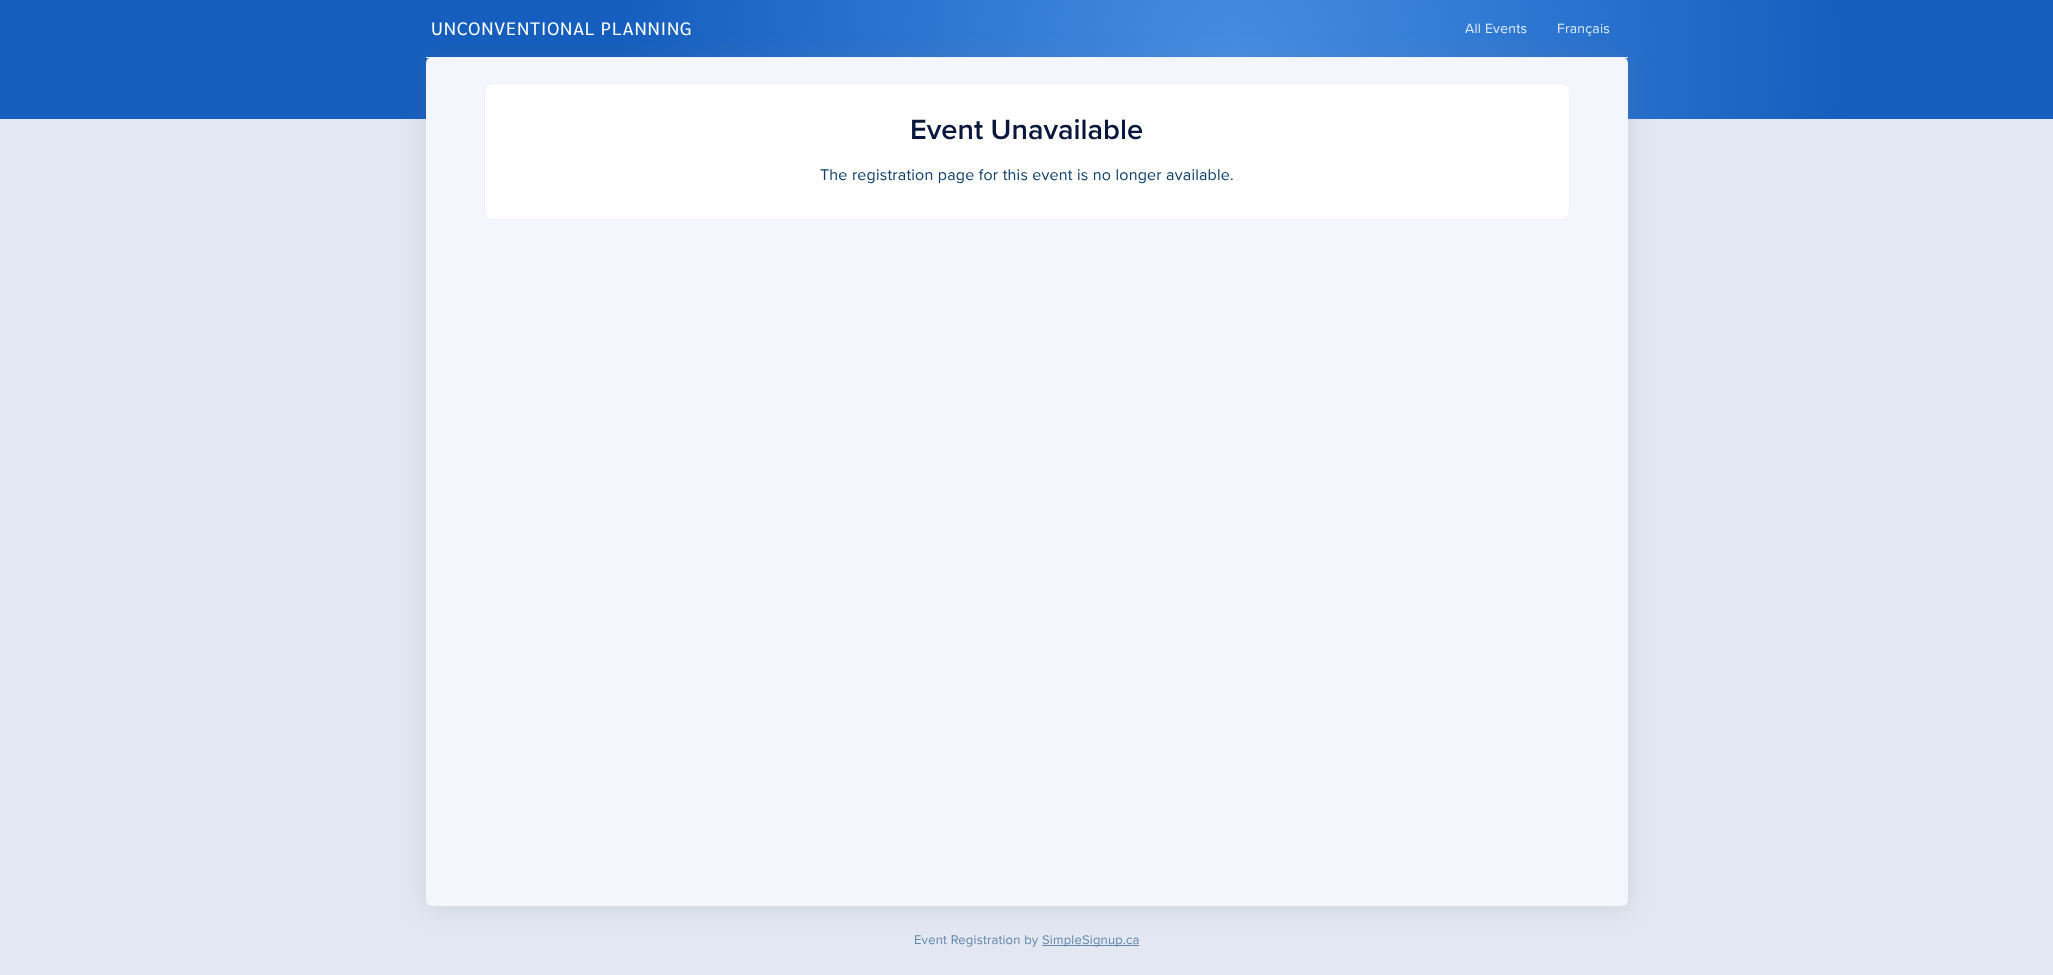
<svg xmlns="http://www.w3.org/2000/svg" width="2053" height="975">
<style>
.a{font:18px Sarabun;letter-spacing:0.9px;fill:#fff}
.b{font:14px Proxima Nova;letter-spacing:0.2px;fill:#e0ebf8}
.c{font:600 29px Proxima Nova;fill:#0a173d}
.d{font:16px Proxima Nova;letter-spacing:0.2px;fill:#0c3d6b}
.e{font:13px Proxima Nova;letter-spacing:0.2px;fill:#6286a8}
</style>
<defs>
<radialGradient id="g1" gradientUnits="userSpaceOnUse" cx="1232" cy="60" r="1233"><stop offset="0" stop-color="#458de3"/><stop offset="0.5" stop-color="#155ebd"/></radialGradient>
</defs>
<rect width="100%" height="100%" fill="#e2e7f1"/>
<path fill="url(#g1)" d="M0 0h2053v119H0z"/>
<rect fill="#7a849333" filter="blur(12px)" x="426" y="59" width="1202" height="849" rx="6"/>
<rect fill="#f3f6fc" x="426" y="57" width="1202" height="849" rx="6"/>
<path fill="#eeeef5" d="M426 57h1202v1H426z"/>
<rect fill="#fff" stroke="#eef0f5" x="484.5" y="83.5" width="1085" height="136" rx="7.5"/>
<path fill="#6286a8" d="M1042 945h97v1H1042z"/>
<text class="a" x="431" y="35">UNCONVENTIONAL PLANNING</text>
<text class="b" x="1465" y="33">All Events</text>
<text class="b" x="1557" y="33">Français</text>
<text class="c" x="910" y="139">Event Unavailable</text>
<text class="d" x="820" y="180">The registration page for this event is no longer available.</text>
<text class="e" x="914" y="944">Event Registration by</text>
<text class="e" x="1042" y="944">SimpleSignup.ca</text>
</svg>
